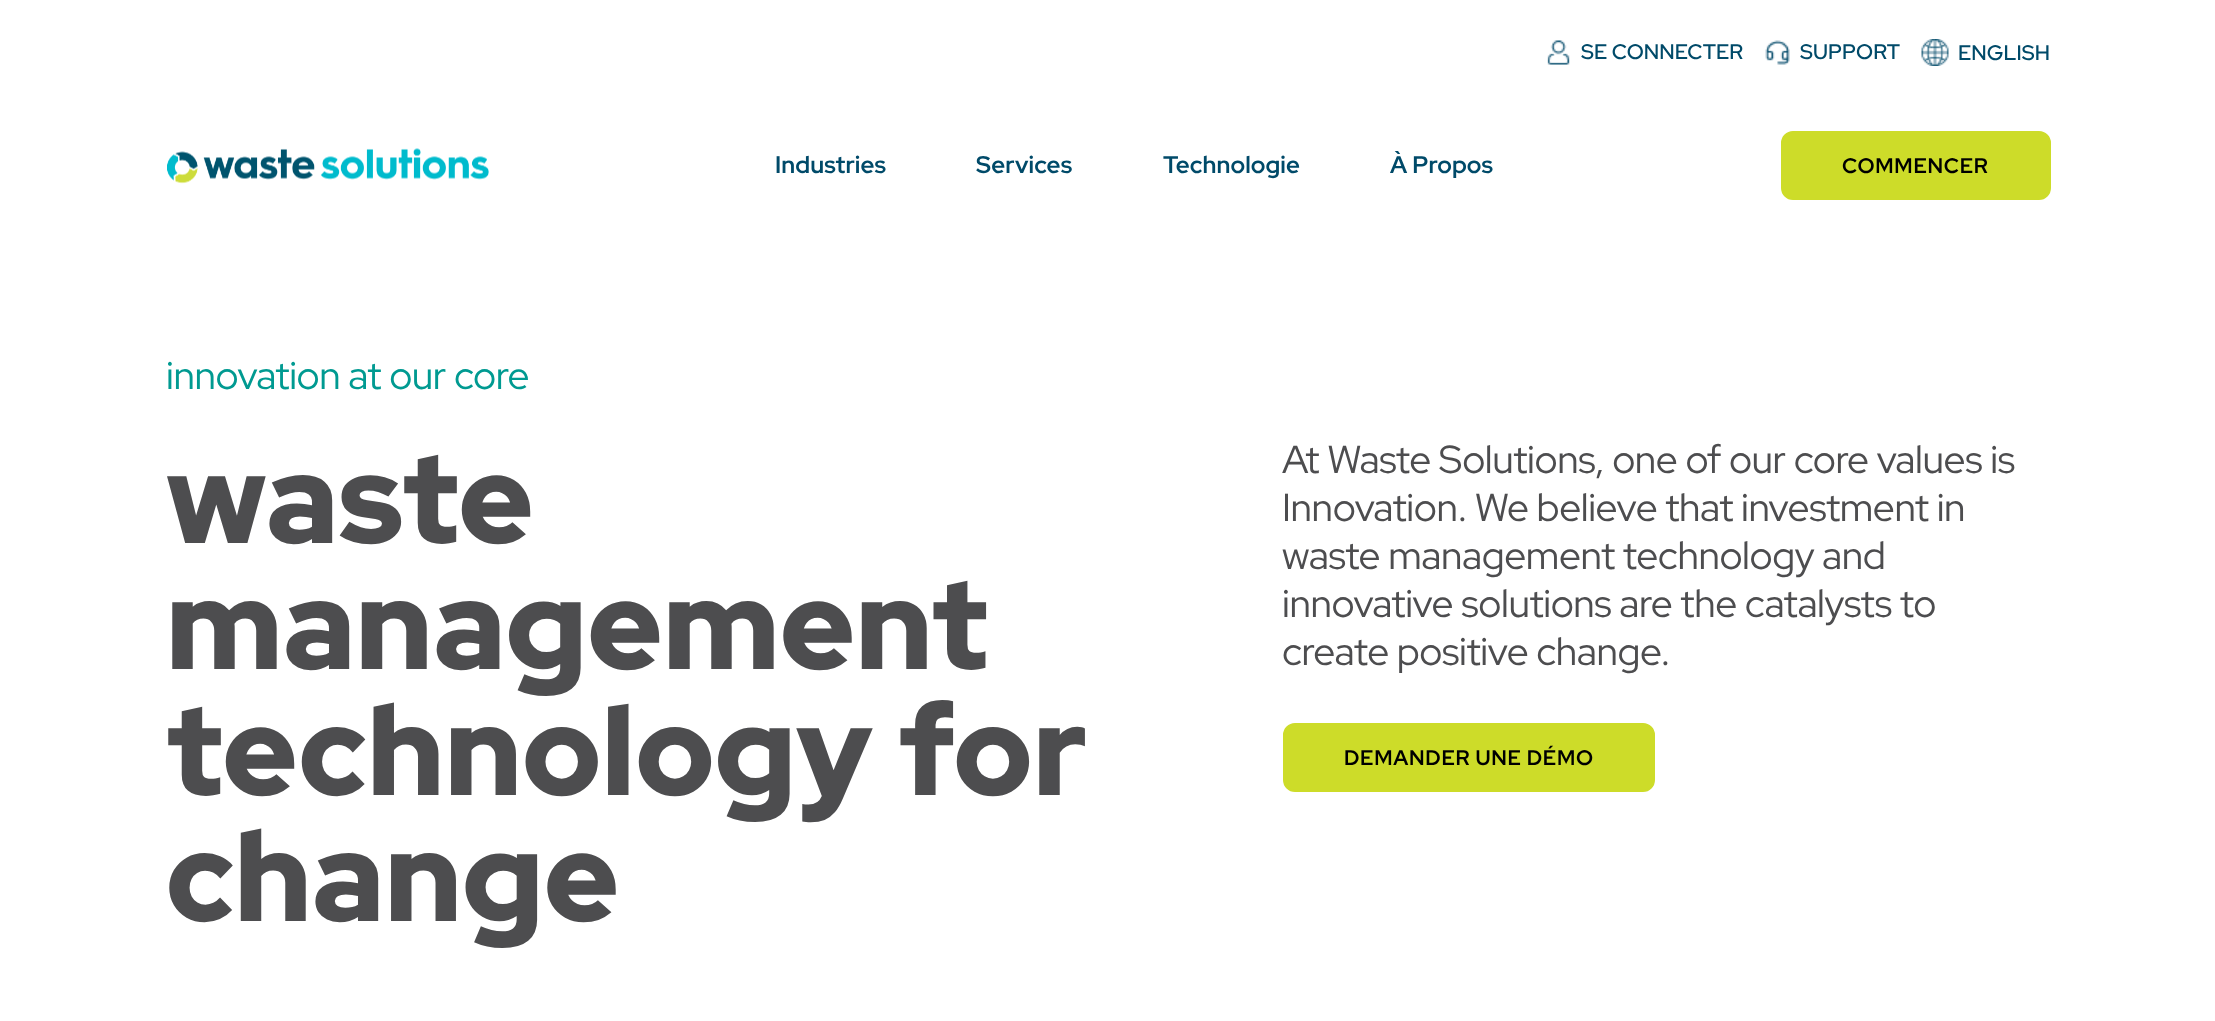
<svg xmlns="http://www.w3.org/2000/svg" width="2215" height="1021">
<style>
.a{font:600 21px Red Hat Display;letter-spacing:0.1px;fill:#004a69}
.b{font:bold 24px Red Hat Display;letter-spacing:0.1px;fill:#004a69}
.c{font:bold 21px Red Hat Display;letter-spacing:0.75px;fill:#000}
.d{font:39px Red Hat Display;letter-spacing:-0.4px;fill:#009a91}
.e{font:900 126px Red Hat Display;letter-spacing:0.6px;fill:#4d4d4f}
.f{font:39px Red Hat Display;letter-spacing:-0.4px;fill:#4d4d4f}
</style>
<rect width="100%" height="100%" fill="#fff"/>
<image href="1.png" x="1547" y="40" width="23" height="25"/>
<image href="2.png" x="1765" y="40" width="25" height="25"/>
<image href="3.png" x="1921" y="39" width="28" height="27"/>
<image href="4.png" x="167" y="148" width="322" height="36"/>
<rect fill="#cddc29" stroke="#cddc29" stroke-width="2" x="1782" y="132" width="268" height="67" rx="11"/>
<rect fill="#cddc29" stroke="#cddc29" stroke-width="2" x="1284" y="724" width="370" height="67" rx="11"/>
<text class="a" x="1581" y="59">SE CONNECTER</text>
<text class="a" x="1800" y="59">SUPPORT</text>
<text class="a" x="1958" y="60">ENGLISH</text>
<text class="b" x="775" y="173">Industries</text>
<text class="b" x="976" y="173">Services</text>
<text class="b" x="1163" y="173">Technologie</text>
<text class="b" x="1390" y="173">À Propos</text>
<text class="c" x="1842" y="173">COMMENCER</text>
<text class="d" x="166" y="389">innovation at our core</text>
<text class="e" x="166" y="543">waste</text>
<text class="e" x="166" y="669">management</text>
<text class="e" x="166" y="795">technology for</text>
<text class="e" x="166" y="921">change</text>
<text class="f" x="1282" y="473">At Waste Solutions, one of our core values is</text>
<text class="f" x="1282" y="521">Innovation. We believe that investment in</text>
<text class="f" x="1282" y="569">waste management technology and</text>
<text class="f" x="1282" y="617">innovative solutions are the catalysts to</text>
<text class="f" x="1282" y="665">create positive change.</text>
<text class="c" x="1344" y="765">DEMANDER UNE DÉMO</text>
</svg>
